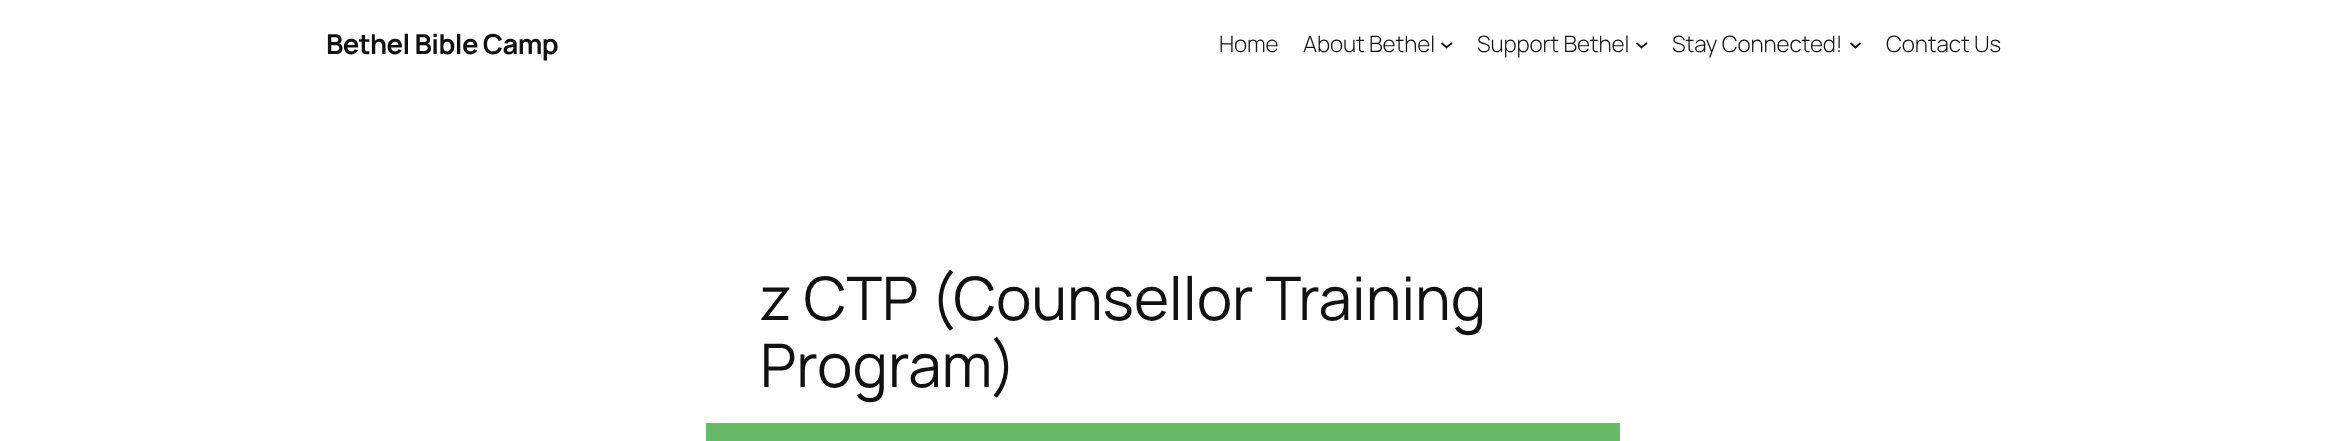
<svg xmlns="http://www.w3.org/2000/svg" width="2326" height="441">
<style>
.a{font:bold 27.5px Manrope;letter-spacing:-0.6px;fill:#111}
.b{font:300 22.5px Manrope;letter-spacing:-0.1px;fill:#111}
.c{font:60px Manrope;letter-spacing:-0.1px;fill:#111}
</style>
<rect width="100%" height="100%" fill="#fff"/>
<path fill="none" stroke="#111" stroke-width="1.7" d="M1441.5 43l5 4.5l5.5-4.5"/>
<path fill="none" stroke="#111" stroke-width="1.7" d="M1636.5 43l5 4.5l5.5-4.5"/>
<path fill="none" stroke="#111" stroke-width="1.7" d="M1850.5 43l5 4.5l5-4.5"/>
<path fill="#68ba68" d="M706 423h914v18H706z"/>
<text class="a" x="326" y="54">Bethel Bible Camp</text>
<text class="b" x="1219" y="52">Home</text>
<text class="b" x="1303" y="52">About Bethel</text>
<text class="b" x="1477" y="52">Support Bethel</text>
<text class="b" x="1672" y="52">Stay Connected!</text>
<text class="b" x="1886" y="52">Contact Us</text>
<text class="c" x="760" y="320">z CTP (Counsellor Training</text>
<text class="c" x="760" y="387">Program)</text>
</svg>
